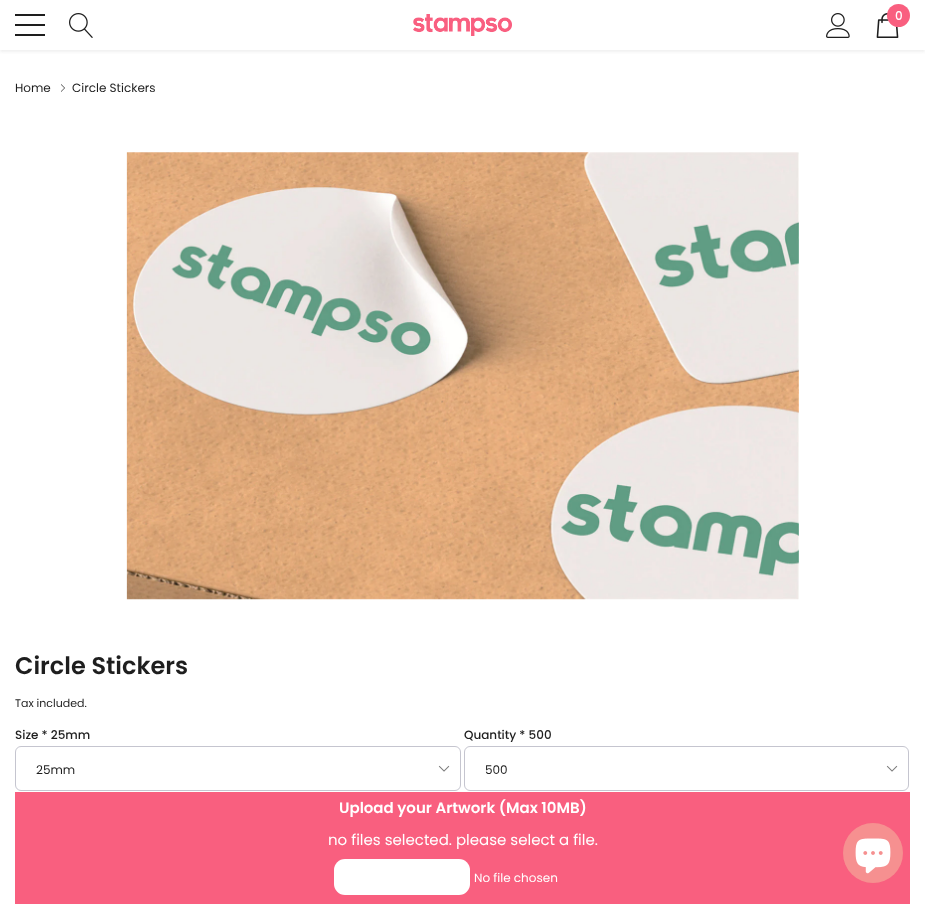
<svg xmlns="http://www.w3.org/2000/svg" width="925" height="904">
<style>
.a{font:500 12px Poppins;fill:#fff}
.b{font:12px Poppins;fill:#1e1e1e}
.c{font:600 24px Poppins;fill:#1e1e1e}
.d{font:11px Poppins;fill:#1e1e1e}
.e{font:500 12px Poppins;fill:#1e1e1e}
.f{font:600 15px Poppins;fill:#fff}
.g{font:15px Poppins;fill:#fff}
.h{font:12px Poppins;fill:#fff}
</style>
<defs>
<clipPath id="clip1"><path d="M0 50h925v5H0z"/></clipPath>
</defs>
<rect width="100%" height="100%" fill="#fff"/>
<g clip-path="url(#clip1)">
<path fill="#efefef" filter="blur(1.5px)" d="M0 2h925v50H0z"/>
</g>
<path fill="#1e1e1e" d="M15 24h30v2H15z"/>
<path fill="#1e1e1e" d="M15 14h30v2H15z"/>
<path fill="#1e1e1e" d="M15 34h30v2H15z"/>
<image href="1.png" x="69" y="13" width="24" height="25"/>
<image href="2.png" x="413" y="14" width="99" height="22"/>
<image href="3.png" x="826" y="13" width="24" height="25"/>
<image href="4.png" x="876" y="13" width="23" height="25"/>
<circle fill="#f95f7f" cx="898.5" cy="15.5" r="11.5"/>
<image href="5.png" x="61" y="84" width="4" height="8"/>
<image href="6.png" x="126" y="152" width="673" height="448"/>
<image href="7.png" x="438" y="765" width="12" height="7"/>
<rect fill="none" stroke="#c5c5cf" x="15.5" y="746.5" width="445" height="44" rx="5.5"/>
<image href="7.png" x="886" y="765" width="12" height="7"/>
<rect fill="none" stroke="#c5c5cf" x="464.5" y="746.5" width="444" height="44" rx="5.5"/>
<path fill="#f95f7f" d="M15 792h895v112H15z"/>
<rect fill="#fff" x="334" y="859" width="136" height="36" rx="11"/>
<circle fill="#f69090" cx="873" cy="853" r="30"/>
<image href="8.png" x="855" y="838" width="36" height="36"/>
<text class="a" x="895" y="20">0</text>
<text class="b" x="15" y="92">Home</text>
<text class="b" x="72" y="92">Circle Stickers</text>
<text class="c" x="15" y="674">Circle Stickers</text>
<text class="d" x="15" y="707">Tax included.</text>
<text class="e" x="15" y="739">Size * 25mm</text>
<text class="b" x="36" y="774">25mm</text>
<text class="e" x="464" y="739">Quantity * 500</text>
<text class="b" x="485" y="774">500</text>
<text class="f" x="339" y="813">Upload your Artwork (Max 10MB)</text>
<text class="g" x="328" y="845">no files selected. please select a file.</text>
<text class="h" x="474" y="882">No file chosen</text>
</svg>
